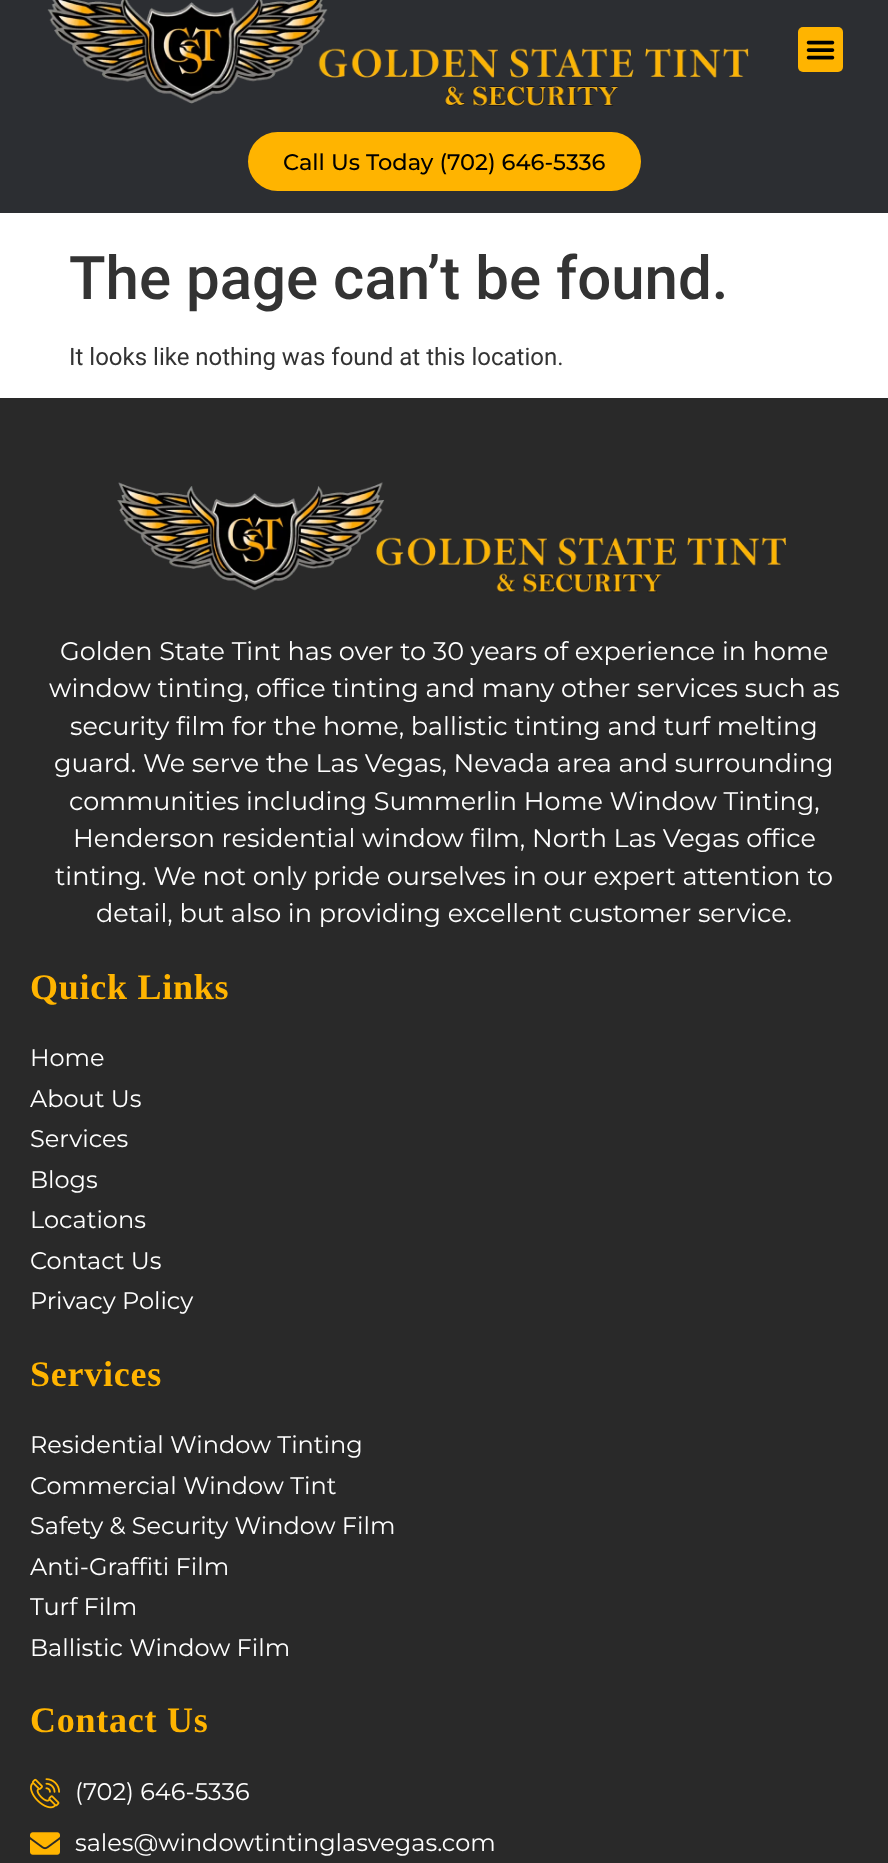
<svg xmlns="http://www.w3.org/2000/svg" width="888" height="1863">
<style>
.a{font:500 22.5px Montserrat;fill:#000}
.b{font:500 60px Roboto;fill:#333}
.c{font:24px Roboto;fill:#333}
.d{font:25.5px Montserrat;fill:#fff}
.e{font:bold 36px Liberation Serif;letter-spacing:0.75px;fill:#ffb400}
.f{font:24px Montserrat;fill:#fff}
</style>
<rect width="100%" height="100%" fill="#fff"/>
<path fill="#2c2e32" d="M0 0h888v213H0z"/>
<image href="1.png" x="47" y="0" width="702" height="106"/>
<rect fill="#ffb400" x="798" y="27" width="45" height="45" rx="5"/>
<image href="2.png" x="806" y="40" width="29" height="20"/>
<rect fill="#ffb400" x="248" y="132" width="393" height="59" rx="29.5"/>
<path fill="#292929" d="M0 398h888v1465H0z"/>
<image href="3.png" x="117" y="482" width="670" height="111"/>
<image href="4.png" x="30" y="1778" width="30" height="31"/>
<image href="5.png" x="30" y="1832" width="30" height="23"/>
<text class="a" x="283" y="170">Call Us Today (702) 646-5336</text>
<text class="b" x="69" y="299">The page can’t be found.</text>
<text class="c" x="69" y="365">It looks like nothing was found at this location.</text>
<text class="d" x="60" y="660">Golden State Tint has over to 30 years of experience in home</text>
<text class="d" x="49" y="697">window tinting, office tinting and many other services such as</text>
<text class="d" x="70" y="735">security film for the home, ballistic tinting and turf melting</text>
<text class="d" x="54" y="772">guard. We serve the Las Vegas, Nevada area and surrounding</text>
<text class="d" x="69" y="810">communities including Summerlin Home Window Tinting,</text>
<text class="d" x="73" y="847">Henderson residential window film, North Las Vegas office</text>
<text class="d" x="55" y="885">tinting. We not only pride ourselves in our expert attention to</text>
<text class="d" x="96" y="922">detail, but also in providing excellent customer service.</text>
<text class="e" x="30" y="999">Quick Links</text>
<text class="f" x="30" y="1066">Home</text>
<text class="f" x="30" y="1107">About Us</text>
<text class="f" x="30" y="1147">Services</text>
<text class="f" x="30" y="1188">Blogs</text>
<text class="f" x="30" y="1228">Locations</text>
<text class="f" x="30" y="1269">Contact Us</text>
<text class="f" x="30" y="1309">Privacy Policy</text>
<text class="e" x="30" y="1386">Services</text>
<text class="f" x="30" y="1453">Residential Window Tinting</text>
<text class="f" x="30" y="1494">Commercial Window Tint</text>
<text class="f" x="30" y="1534">Safety &amp; Security Window Film</text>
<text class="f" x="30" y="1575">Anti-Graffiti Film</text>
<text class="f" x="30" y="1615">Turf Film</text>
<text class="f" x="30" y="1656">Ballistic Window Film</text>
<text class="e" x="30" y="1732">Contact Us</text>
<text class="f" x="75" y="1800">(702) 646-5336</text>
<text class="f" x="75" y="1851">sales@windowtintinglasvegas.com</text>
</svg>
